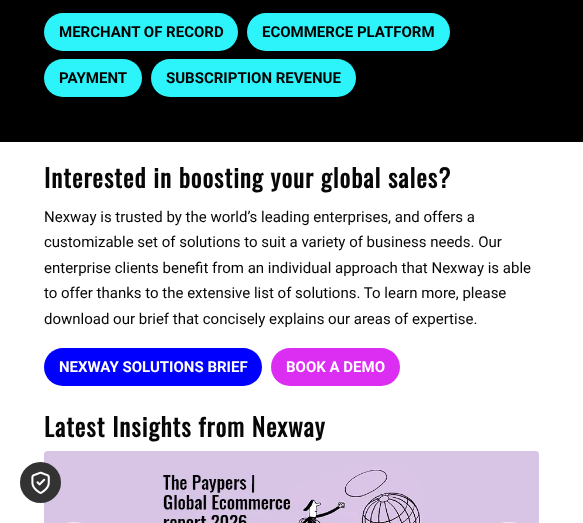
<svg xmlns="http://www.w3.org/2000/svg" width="583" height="523">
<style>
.a{font:bold 15px Roboto;fill:#000}
.b{font:bold 25px Oswald;letter-spacing:1px;fill:#070707}
.c{font:15px Roboto;fill:#070707}
.d{font:bold 15px Roboto;fill:#fff}
</style>
<rect width="100%" height="100%" fill="#fff"/>
<path fill="#000" d="M0 0h583v142H0z"/>
<rect fill="#2df4fb" x="44" y="13" width="194" height="38" rx="19"/>
<rect fill="#2df4fb" x="247" y="13" width="203" height="38" rx="19"/>
<rect fill="#2df4fb" x="44" y="59" width="98" height="38" rx="19"/>
<rect fill="#2df4fb" x="151" y="59" width="205" height="38" rx="19"/>
<rect fill="#00f" x="44" y="348" width="218" height="38" rx="19"/>
<rect fill="#db2ef2" x="271" y="348" width="129" height="38" rx="19"/>
<image href="1.png" x="44" y="451" width="495" height="72"/>
<rect fill="#efe8f5" x="52" y="522" width="44" height="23" rx="22"/>
<rect fill="#efe8f5" x="487" y="522" width="44" height="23" rx="22"/>
<circle fill="#333" stroke="#333" stroke-width="2" cx="40.5" cy="482.5" r="19.5"/>
<image href="2.png" x="31" y="471" width="19" height="23"/>
<text class="a" x="59" y="37">MERCHANT OF RECORD</text>
<text class="a" x="262" y="37">ECOMMERCE PLATFORM</text>
<text class="a" x="59" y="83">PAYMENT</text>
<text class="a" x="166" y="83">SUBSCRIPTION REVENUE</text>
<text class="b" x="44" y="188">Interested in boosting your global sales?</text>
<text class="c" x="44" y="222">Nexway is trusted by the world’s leading enterprises, and offers a</text>
<text class="c" x="44" y="247">customizable set of solutions to suit a variety of business needs. Our</text>
<text class="c" x="44" y="273">enterprise clients benefit from an individual approach that Nexway is able</text>
<text class="c" x="44" y="298">to offer thanks to the extensive list of solutions. To learn more, please</text>
<text class="c" x="44" y="324">download our brief that concisely explains our areas of expertise.</text>
<text class="d" x="59" y="372">NEXWAY SOLUTIONS BRIEF</text>
<text class="d" x="286" y="372">BOOK A DEMO</text>
<text class="b" x="44" y="437">Latest Insights from Nexway</text>
</svg>
